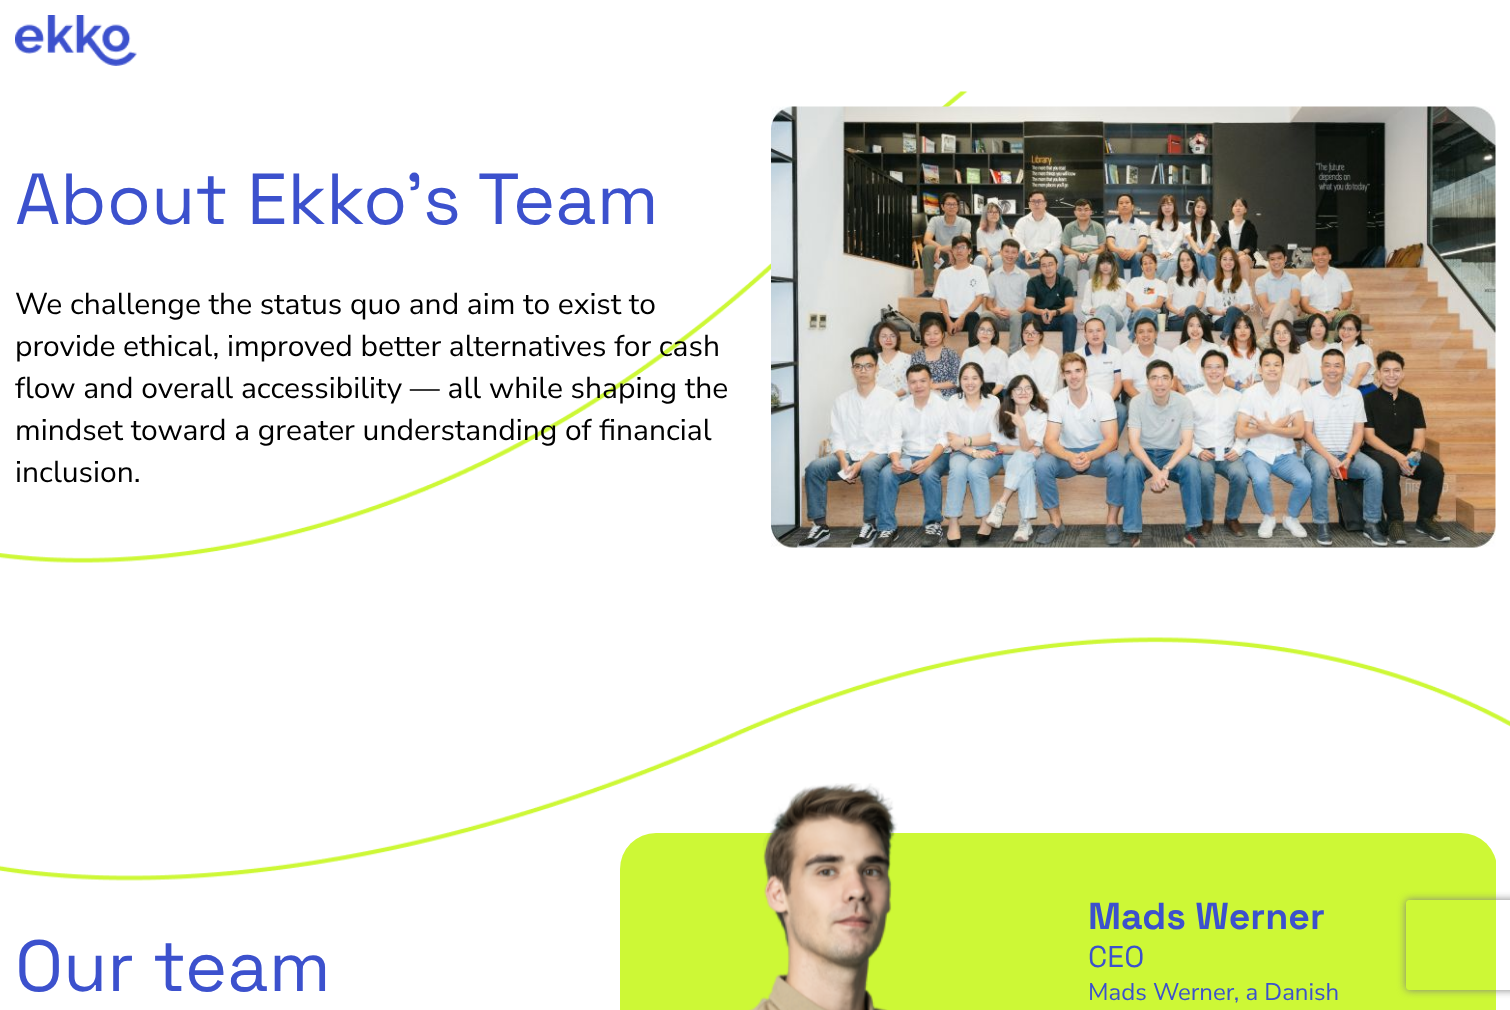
<svg xmlns="http://www.w3.org/2000/svg" width="1510" height="1010">
<style>
.a{font:72px Space Grotesk;fill:#3c51cd}
.b{font:30px Nunito Sans;fill:#000}
.c{font:bold 37.5px Space Grotesk;fill:#3c51cd}
.d{font:30px Space Grotesk;fill:#3c51cd}
.e{font:24px Nunito Sans;fill:#3c51cd}
</style>
<defs>
<clipPath id="clip1"><path d="M620 683h876v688H620z"/></clipPath>
<clipPath id="clip2"><path d="M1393 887h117v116h-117zm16 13h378c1.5 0 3 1.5 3 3v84c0 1.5-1.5 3-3 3h-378c-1.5 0-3-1.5-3-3v-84c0-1.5 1.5-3 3-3z" clip-rule="evenodd"/></clipPath>
</defs>
<rect width="100%" height="100%" fill="#fff"/>
<image href="1.png" x="15" y="15" width="122" height="51"/>
<image href="2.png" x="0" y="91" width="968" height="472"/>
<image href="3.png" x="771" y="106" width="725" height="442"/>
<image href="4.png" x="0" y="637" width="1510" height="244"/>
<g clip-path="url(#clip1)">
<rect fill="#cdf836" x="620" y="833" width="877" height="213" rx="36"/>
</g>
<image href="5.png" x="749" y="783" width="149" height="227"/>
<g clip-path="url(#clip2)">
<rect fill="#808080" filter="blur(4px)" x="1406" y="900" width="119" height="90" rx="3"/>
</g>
<text class="a" x="15" y="224">About Ekko's Team</text>
<text class="b" x="15" y="314">We challenge the status quo and aim to exist to</text>
<text class="b" x="15" y="356">provide ethical, improved better alternatives for cash</text>
<text class="b" x="15" y="398">flow and overall accessibility — all while shaping the</text>
<text class="b" x="15" y="440">mindset toward a greater understanding of financial</text>
<text class="b" x="15" y="482">inclusion.</text>
<text class="a" x="15" y="991">Our team</text>
<text class="c" x="1088" y="929">Mads Werner</text>
<text class="d" x="1088" y="967">CEO</text>
<text class="e" x="1088" y="1000">Mads Werner, a Danish</text>
</svg>
